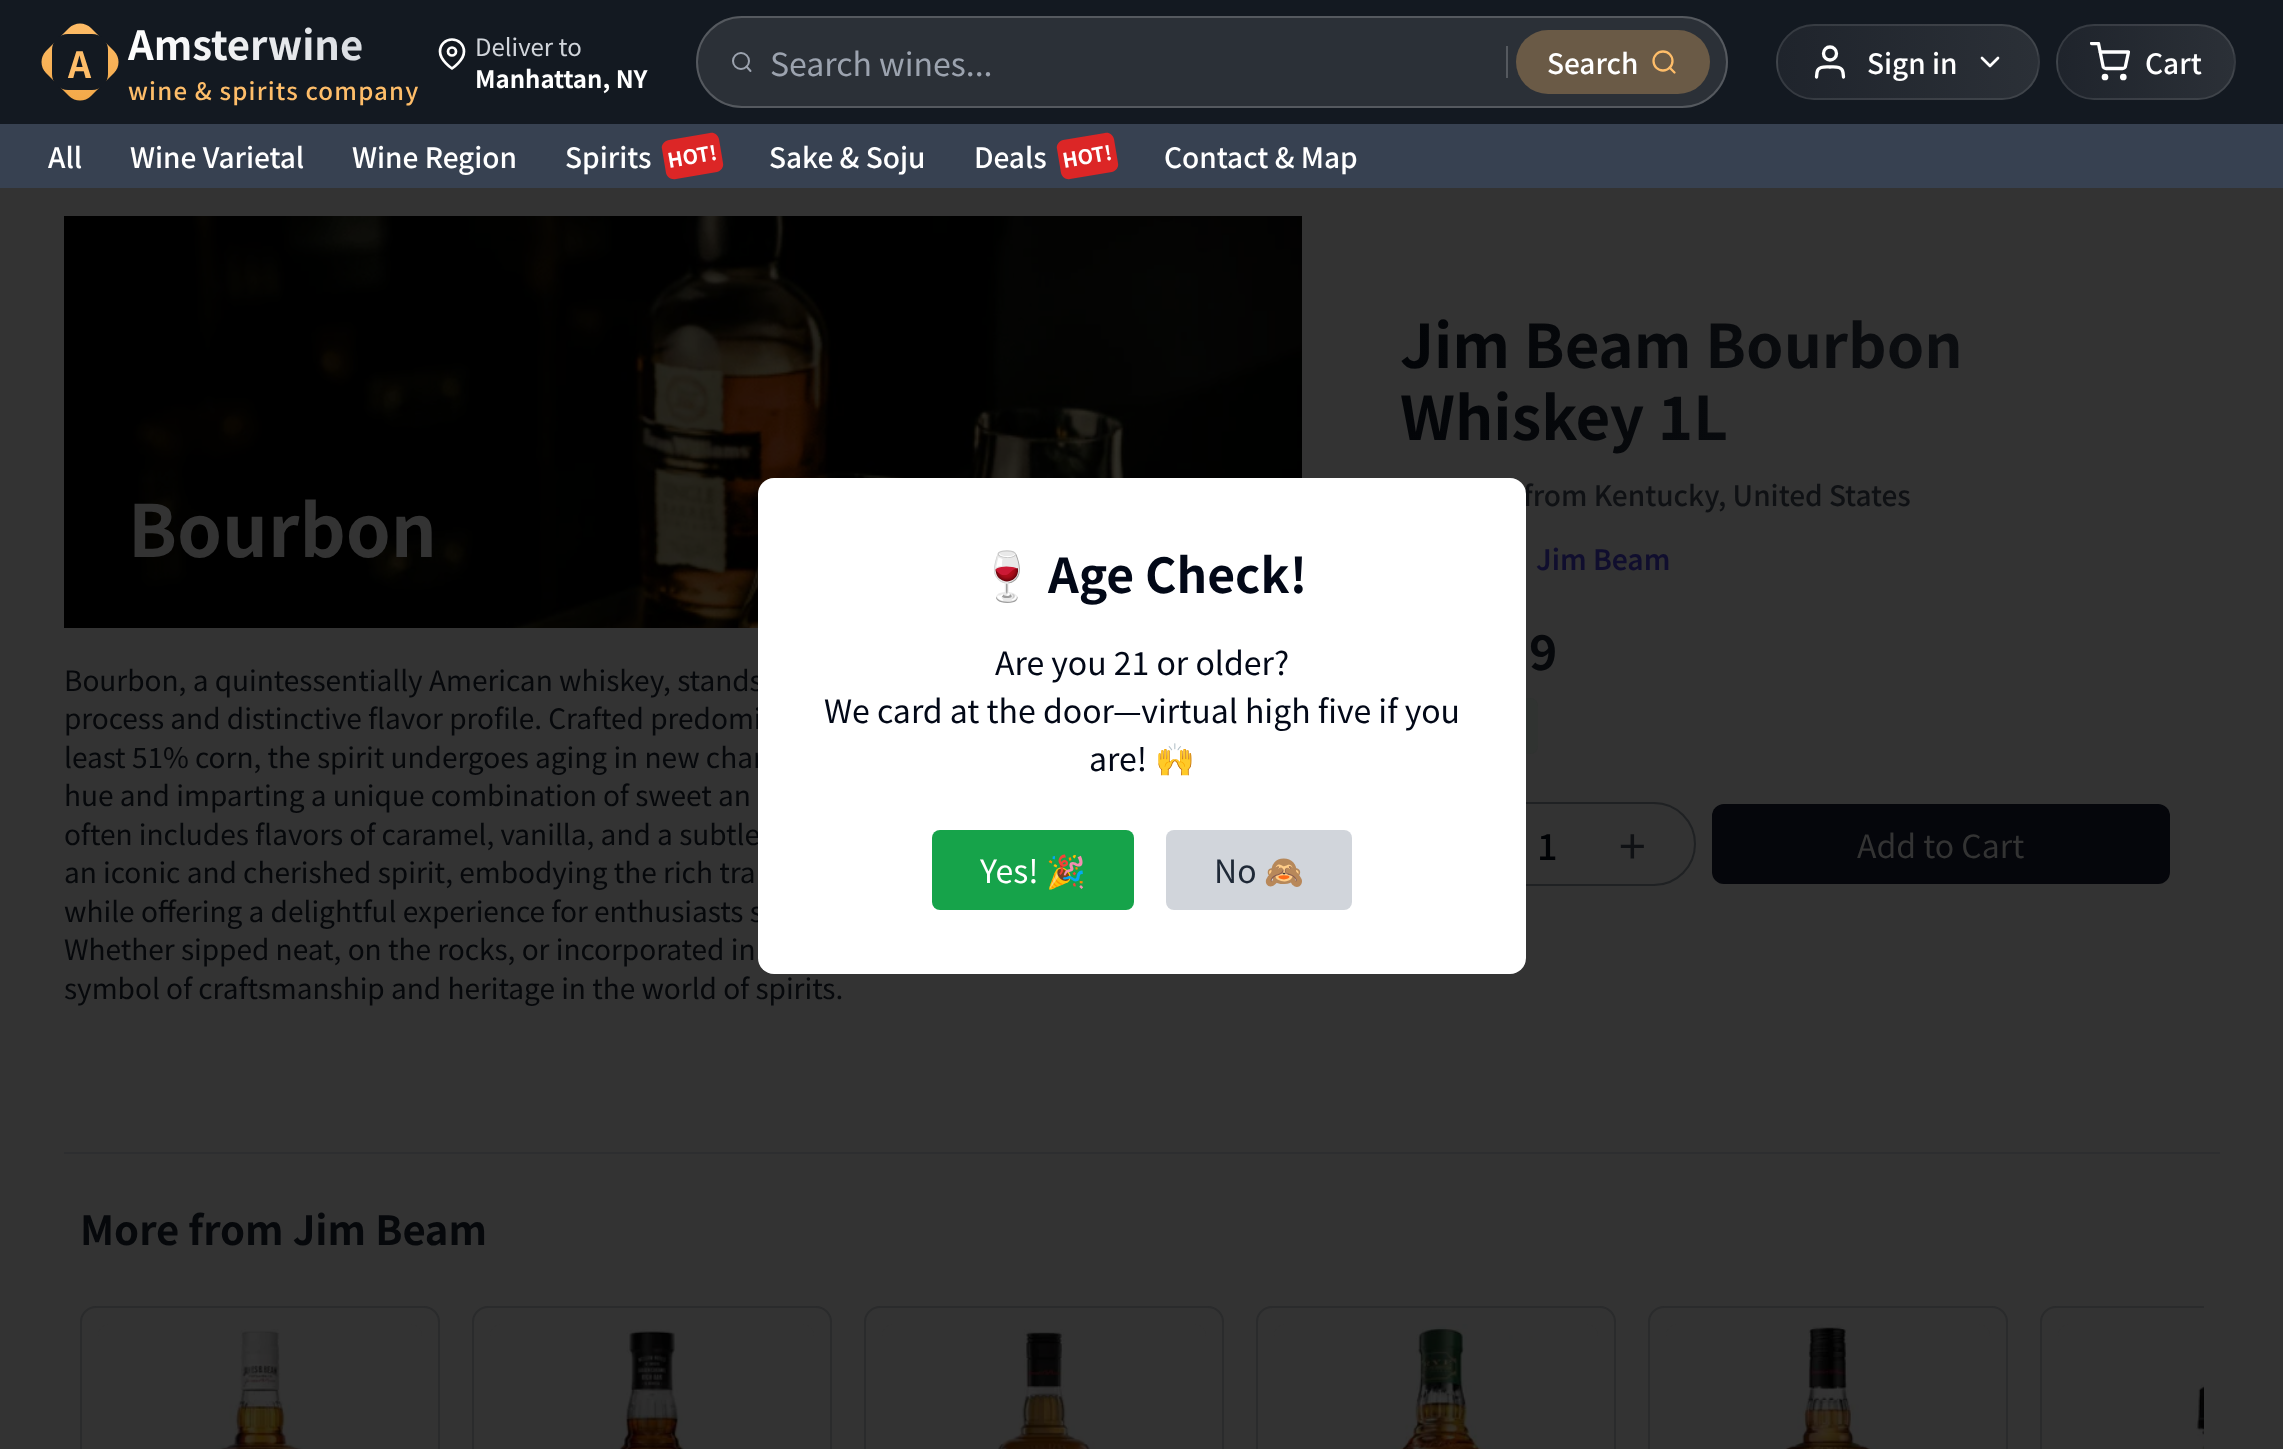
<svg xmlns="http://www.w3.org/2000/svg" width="2283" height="1449">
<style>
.a{font:bold 36px Noto Sans KR;fill:#febd69}
.b{font:bold 40px Noto Sans KR;fill:url(#g8)}
.c{font:500 24px Noto Sans KR;letter-spacing:1.2px;fill:#febd69}
.d{font:24px Noto Sans KR;fill:#d1d5db}
.e{font:bold 24px Noto Sans KR;fill:#fff}
.f{font:32px Noto Sans KR;fill:#9ca3af}
.g{font:500 28px Noto Sans KR;fill:#fff}
.h{font:bold 20px Noto Sans KR;fill:#fff}
.i{font:bold 72px Noto Sans KR;fill:#333}
.j{font:28px Noto Sans KR;fill:#06080b}
.k{font:bold 60px Noto Sans KR;fill:url(#g9)}
.l{font:500 28px Noto Sans KR;fill:#0f1114}
.m{font:600 28px Noto Sans KR;fill:#100e2e}
.n{font:bold 48px Noto Sans KR;fill:#06080b}
.o{font:500 36px Noto Sans KR;fill:#000205}
.p{font:48px Noto Sans KR;fill:#0f1114}
.q{font:32px Noto Sans KR;fill:#333}
.r{font:bold 40px Noto Sans KR;fill:#06080b}
.s{font:bold 48px Noto Color Emoji;fill:#020817}
.t{font:bold 48px Noto Sans KR;fill:#020817}
.u{font:32px Noto Sans KR;fill:#020817}
.v{font:32px Noto Color Emoji;fill:#020817}
.w{font:32px Noto Sans KR;fill:#fff}
.x{font:32px Noto Color Emoji;fill:#fff}
.y{font:32px Noto Sans KR;fill:#1f2937}
.z{font:32px Noto Color Emoji;fill:#1f2937}
</style>
<defs>
<linearGradient id="g1" gradientUnits="userSpaceOnUse" x1="80" y1="17" x2="80" y2="107"><stop offset="0" stop-color="#febd69"/><stop offset="1" stop-color="#f3a847"/></linearGradient>
<clipPath id="clip1"><rect x="1776" y="24" width="264" height="76" rx="38"/></clipPath>
<linearGradient id="g2" gradientUnits="userSpaceOnUse" x1="1518" y1="62" x2="1778" y2="62"><stop offset="0" stop-color="#1f242c"/><stop offset="1" stop-color="#2b3037"/></linearGradient>
<linearGradient id="g3" gradientUnits="userSpaceOnUse" x1="1778" y1="62" x2="2038" y2="62"><stop offset="0" stop-color="#1f242c"/><stop offset="1" stop-color="#2b3037"/></linearGradient>
<linearGradient id="g4" gradientUnits="userSpaceOnUse" x1="2038" y1="62" x2="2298" y2="62"><stop offset="0" stop-color="#1f242c"/><stop offset="1" stop-color="#2b3037"/></linearGradient>
<clipPath id="clip2"><rect x="2056" y="24" width="180" height="76" rx="38"/></clipPath>
<linearGradient id="g5" gradientUnits="userSpaceOnUse" x1="1882" y1="62" x2="2058" y2="62"><stop offset="0" stop-color="#1f242c"/><stop offset="1" stop-color="#2a3037"/></linearGradient>
<linearGradient id="g6" gradientUnits="userSpaceOnUse" x1="2058" y1="62" x2="2234" y2="62"><stop offset="0" stop-color="#1f242c"/><stop offset="1" stop-color="#2b3037"/></linearGradient>
<linearGradient id="g7" gradientUnits="userSpaceOnUse" x1="2234" y1="62" x2="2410" y2="62"><stop offset="0" stop-color="#1f242c"/><stop offset="1" stop-color="#2b3037"/></linearGradient>
<clipPath id="clip3"><path d="M2090 42h40v40H2090z"/></clipPath>
<clipPath id="clip4"><path d="M80 1306h2124v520H80z"/></clipPath>
<linearGradient id="g8" gradientUnits="userSpaceOnUse" x1="128" y1="44" x2="419" y2="44"><stop offset="0" stop-color="#fff"/><stop offset="1" stop-color="#d1d5db"/></linearGradient>
<linearGradient id="g9" gradientUnits="userSpaceOnUse" x1="1400" y1="378" x2="2170" y2="378"><stop offset="0" stop-color="#030508"/><stop offset="1" stop-color="#0f1114"/></linearGradient>
</defs>
<rect width="100%" height="100%" fill="#333"/>
<path fill="#131921" d="M0 0h2283v124H0z"/>
<path fill="url(#g1)" d="M91 28l23 23c6 6 6 16 0 22l-23 23c-6 6-16 6-22 0l-23-23c-6-6-6-16 0-22l23-23c6-6 16-6 22 0z"/>
<rect fill="#131921" x="52" y="34" width="56" height="56" rx="16"/>
<path fill="none" stroke="#fff" stroke-width="2.7" stroke-linecap="round" stroke-linejoin="round" d="M464 51.5c0 9-12 17-12 17c0 0-12-8-12-17c0-7 5.5-12 12-12c6.5 0 12 5 12 12z"/>
<circle fill="none" stroke="#fff" stroke-width="2.7" cx="452" cy="51.5" r="4"/>
<rect fill="#2b3037" x="696" y="16" width="1032" height="92" rx="46"/>
<rect fill="none" stroke="#ffffff33" stroke-width="2" x="697" y="17" width="1030" height="90" rx="45"/>
<circle fill="none" stroke="#9ca3af" stroke-width="2" cx="741" cy="61" r="8"/>
<path fill="none" stroke="#9ca3af" stroke-width="2" stroke-linecap="round" stroke-linejoin="round" d="M750.5 71l-4-4.5"/>
<path fill="#55595f" d="M1506 46h2v32H1506z"/>
<rect fill="#6a5a46" x="1516" y="30" width="194" height="64" rx="32"/>
<circle fill="none" stroke="#febd69" stroke-width="2.3" cx="1663" cy="61" r="9.5"/>
<path fill="none" stroke="#febd69" stroke-width="2.3" stroke-linecap="round" stroke-linejoin="round" d="M1674.5 72.5l-5-5"/>
<g clip-path="url(#clip1)">
<path fill="url(#g2)" d="M1776 50h2v24H1776z"/>
<path fill="url(#g3)" d="M1778 24h260v76H1778z"/>
<path fill="url(#g4)" d="M2038 50h2v24H2038z"/>
</g>
<rect fill="none" stroke="#ffffff1a" stroke-width="2" x="1777" y="25" width="262" height="74" rx="37"/>
<path fill="none" stroke="#fff" stroke-width="3.3" stroke-linecap="round" stroke-linejoin="round" d="M1843.5 77l-.5-4.5c-1-6.5-8-5.5-13-5.5c-5 0-12-1-13 5.5l-.5 4.5"/>
<circle fill="none" stroke="#fff" stroke-width="3.3" cx="1830" cy="53.5" r="6.5"/>
<path fill="none" stroke="#fff" stroke-width="2.7" stroke-linecap="round" stroke-linejoin="round" d="M1982 58l8 8l8-8"/>
<g clip-path="url(#clip2)">
<path fill="url(#g5)" d="M2056 50h2v24H2056z"/>
<path fill="url(#g6)" d="M2058 24h176v76H2058z"/>
<path fill="url(#g7)" d="M2234 50h2v24H2234z"/>
</g>
<rect fill="none" stroke="#ffffff1a" stroke-width="2" x="2057" y="25" width="178" height="74" rx="37"/>
<circle fill="none" stroke="#fff" stroke-width="3.3" cx="2105" cy="77" r="1.7"/>
<circle fill="none" stroke="#fff" stroke-width="3.3" cx="2123.3" cy="77" r="1.7"/>
<g clip-path="url(#clip3)">
<path fill="none" stroke="#fff" stroke-width="3.3" stroke-linecap="round" stroke-linejoin="round" d="M2091.5 43.5h7l4.5 22.5c0 1.5 1.5 2.5 3 2.5h16.5c1.5 0 3-1 3-2.5l3-14h-28.5"/>
</g>
<path fill="#374151" d="M0 124h2283v64H0z"/>
<path fill="#dc2626" d="M669 140l41-7c4-1 8 2 9 6l4 24c1 4-2 8-6 9l-41 7c-5 1-9-2-10-6l-4-24c-1-4 2-8 7-9z"/>
<path fill="#dc2626" d="M1063 140l42-7c4-1 8 2 9 6l4 24c1 4-2 8-6 9l-42 7c-4 1-8-2-9-6l-4-24c-1-4 2-8 6-9z"/>
<image href="1.png" x="64" y="216" width="1238" height="412"/>
<rect fill="#303331" x="1400" y="698" width="138" height="56" rx="8"/>
<rect fill="none" stroke="#1f2123" stroke-width="2" x="1401" y="803" width="294" height="82" rx="41"/>
<rect fill="#05060b" x="1712" y="804" width="458" height="80" rx="12"/>
<path fill="#2d2e30" d="M64 1152h2156v2H64z"/>
<rect fill="none" stroke="#2a2b2c" stroke-width="2" x="81" y="1307" width="358" height="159" rx="15"/>
<image href="2.png" x="98" y="1324" width="324" height="125"/>
<rect fill="none" stroke="#2a2b2c" stroke-width="2" x="473" y="1307" width="358" height="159" rx="15"/>
<image href="3.png" x="490" y="1324" width="324" height="125"/>
<rect fill="none" stroke="#2a2b2c" stroke-width="2" x="865" y="1307" width="358" height="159" rx="15"/>
<image href="4.png" x="882" y="1324" width="324" height="125"/>
<rect fill="none" stroke="#2a2b2c" stroke-width="2" x="1257" y="1307" width="358" height="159" rx="15"/>
<image href="5.png" x="1274" y="1324" width="324" height="125"/>
<rect fill="none" stroke="#2a2b2c" stroke-width="2" x="1649" y="1307" width="358" height="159" rx="15"/>
<image href="6.png" x="1666" y="1324" width="324" height="125"/>
<g clip-path="url(#clip4)">
<rect fill="none" stroke="#2a2b2c" stroke-width="2" x="2041" y="1307" width="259" height="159" rx="15"/>
</g>
<image href="7.png" x="2058" y="1324" width="146" height="125"/>
<text class="a" x="68" y="78">A</text>
<text class="b" x="128" y="60">Amsterwine</text>
<text class="c" x="128" y="100">wine &amp; spirits company</text>
<text class="d" x="475" y="56">Deliver to</text>
<text class="e" x="475" y="88">Manhattan, NY</text>
<text class="f" x="770" y="76">Search wines...</text>
<text class="g" x="1547" y="74">Search</text>
<text class="g" x="1867" y="74">Sign in</text>
<text class="g" x="2145" y="74">Cart</text>
<text class="g" x="48" y="168">All</text>
<text class="g" x="130" y="168">Wine Varietal</text>
<text class="g" x="352" y="168">Wine Region</text>
<text class="g" x="565" y="168">Spirits</text>
<text class="h" x="669" y="168" transform="rotate(-10 669 168)">HOT!</text>
<text class="g" x="769" y="168">Sake &amp; Soju</text>
<text class="g" x="974" y="168">Deals</text>
<text class="h" x="1064" y="168" transform="rotate(-10 1064 168)">HOT!</text>
<text class="g" x="1164" y="168">Contact &amp; Map</text>
<text class="i" x="128" y="557">Bourbon</text>
<text class="j" x="64" y="691">Bourbon, a quintessentially American whiskey, stands</text>
<text class="j" x="64" y="729">process and distinctive flavor profile. Crafted predomi</text>
<text class="j" x="64" y="768">least 51% corn, the spirit undergoes aging in new char</text>
<text class="j" x="64" y="806">hue and imparting a unique combination of sweet an</text>
<text class="j" x="64" y="845">often includes flavors of caramel, vanilla, and a subtle</text>
<text class="j" x="64" y="883">an iconic and cherished spirit, embodying the rich tra</text>
<text class="j" x="64" y="922">while offering a delightful experience for enthusiasts s</text>
<text class="j" x="64" y="960">Whether sipped neat, on the rocks, or incorporated in</text>
<text class="j" x="64" y="999">symbol of craftsmanship and heritage in the world of spirits.</text>
<text class="k" x="1400" y="368">Jim Beam Bourbon</text>
<text class="k" x="1400" y="440">Whiskey 1L</text>
<text class="l" x="1523" y="506">from Kentucky, United States</text>
<text class="m" x="1536" y="570">Jim Beam</text>
<text class="n" x="1529" y="670">9</text>
<text class="o" x="1537" y="860">1</text>
<text class="p" x="1619" y="864">+</text>
<text class="q" x="1857" y="858">Add to Cart</text>
<text class="r" x="80" y="1245">More from Jim Beam</text>
<rect fill="#fff" x="758" y="478" width="768" height="496" rx="16"/>
<text class="s" x="977" y="593">🍷</text>
<text class="t" x="1048" y="593">Age Check!</text>
<text class="u" x="995" y="675">Are you 21 or older?</text>
<text class="u" x="824" y="723">We card at the door—virtual high five if you</text>
<text class="u" x="1089" y="771">are!</text>
<text class="v" x="1155" y="771">🙌</text>
<rect fill="#16a34a" x="932" y="830" width="202" height="80" rx="8"/>
<text class="w" x="980" y="883">Yes!</text>
<text class="x" x="1046" y="883">🎉</text>
<rect fill="#d1d5db" x="1166" y="830" width="186" height="80" rx="8"/>
<text class="y" x="1214" y="883">No</text>
<text class="z" x="1264" y="883">🙈</text>
</svg>
